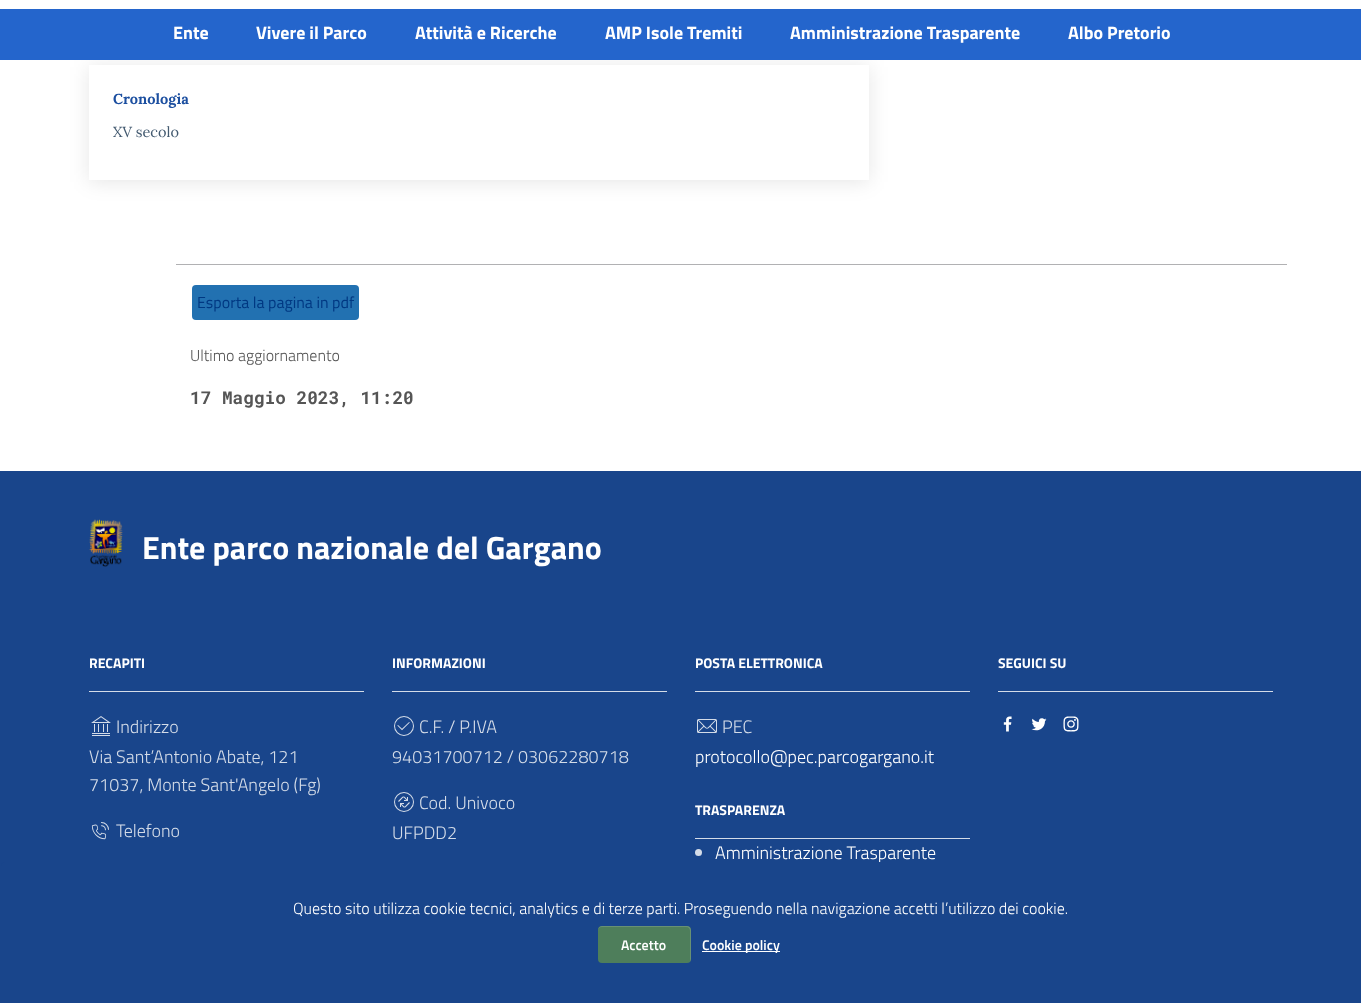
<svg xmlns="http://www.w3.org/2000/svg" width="1361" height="1003">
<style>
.a{font:bold 18px Titillium Web;fill:#fff}
.b{font:bold 14.5px Lora;fill:#1c4fa0}
.c{font:14.5px Lora;fill:#435a70}
.d{font:16px Titillium Web;fill:#003882}
.e{font:300 16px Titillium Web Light;fill:#555}
.f{font:bold 17.75px Roboto Mono;fill:#555}
.g{font:bold 32px Titillium Web;fill:#fff}
.h{font:bold 14px Titillium Web;fill:#fff}
.i{font:300 18px Titillium Web Light;fill:#d4dce8}
.j{font:300 18px Titillium Web Light;fill:#fff}
.k{font:300 16px Titillium Web Light;fill:#fff}
.l{font:600 14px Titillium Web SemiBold;fill:#fff}
</style>
<defs>
<clipPath id="clip1"><path d="M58 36h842v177h-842zm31 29h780v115h-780z" clip-rule="evenodd"/></clipPath>
</defs>
<rect width="100%" height="100%" fill="#fff"/>
<g clip-path="url(#clip1)">
<path fill="#0000001a" filter="blur(10px)" d="M89 67h780v115H89z"/>
</g>
<path fill="#2465cc" d="M0 9h1361v51H0z"/>
<path fill="#b1b1b3" d="M176 264h1111v1H176z"/>
<rect fill="#2271b1" x="192" y="285" width="167" height="35" rx="4"/>
<path fill="#19458b" d="M0 471h1361v532H0z"/>
<image href="1.png" x="89" y="519" width="34" height="48"/>
<path fill="#d4dce8" d="M89 691h275v1H89z"/>
<image href="2.png" x="91" y="716" width="20" height="20"/>
<image href="3.png" x="91" y="822" width="18" height="18"/>
<path fill="#d4dce8" d="M392 691h275v1H392z"/>
<image href="4.png" x="394" y="716" width="20" height="20"/>
<image href="5.png" x="394" y="792" width="20" height="20"/>
<path fill="#d4dce8" d="M695 691h275v1H695z"/>
<image href="6.png" x="697" y="719" width="20" height="14"/>
<path fill="#d4dce8" d="M695 838h275v1H695z"/>
<circle fill="#d4dce8" cx="698.5" cy="852.5" r="3.5"/>
<path fill="#d4dce8" d="M998 691h275v1H998z"/>
<image href="7.png" x="1003" y="716" width="9" height="16"/>
<image href="8.png" x="1031" y="718" width="16" height="13"/>
<image href="9.png" x="1063" y="716" width="16" height="16"/>
<text class="a" x="173" y="39">Ente</text>
<text class="a" x="256" y="39">Vivere il Parco</text>
<text class="a" x="415" y="39">Attività e Ricerche</text>
<text class="a" x="605" y="39">AMP Isole Tremiti</text>
<text class="a" x="790" y="39">Amministrazione Trasparente</text>
<text class="a" x="1068" y="39">Albo Pretorio</text>
<text class="b" x="113" y="104">Cronologia</text>
<text class="c" x="113" y="137">XV secolo</text>
<text class="d" x="197" y="308">Esporta la pagina in pdf</text>
<text class="e" x="190" y="361">Ultimo aggiornamento</text>
<text class="f" x="190" y="404">17 Maggio 2023, 11:20</text>
<text class="g" x="142" y="559">Ente parco nazionale del Gargano</text>
<text class="h" x="89" y="668">RECAPITI</text>
<text class="i" x="116" y="733">Indirizzo</text>
<text class="i" x="89" y="763">Via Sant’Antonio Abate, 121</text>
<text class="i" x="89" y="791">71037, Monte Sant'Angelo (Fg)</text>
<text class="i" x="116" y="837">Telefono</text>
<text class="h" x="392" y="668">INFORMAZIONI</text>
<text class="i" x="419" y="733">C.F. / P.IVA</text>
<text class="i" x="392" y="763">94031700712 / 03062280718</text>
<text class="i" x="419" y="809">Cod. Univoco</text>
<text class="i" x="392" y="839">UFPDD2</text>
<text class="h" x="695" y="668">POSTA ELETTRONICA</text>
<text class="i" x="722" y="733">PEC</text>
<text class="j" x="695" y="763">protocollo@pec.parcogargano.it</text>
<text class="h" x="695" y="815">TRASPARENZA</text>
<text class="j" x="715" y="859">Amministrazione Trasparente</text>
<text class="h" x="998" y="668">SEGUICI SU</text>
<path fill="#19458b" d="M5 862h1353c2 0 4 2 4 4v137h-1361v-137c0-2 2-4 4-4z"/>
<text class="k" x="293" y="914">Questo sito utilizza cookie tecnici, analytics e di terze parti. Proseguendo nella navigazione accetti l’utilizzo dei cookie.</text>
<rect fill="#4e7e5b" x="598" y="926" width="93" height="37" rx="4"/>
<path fill="#ffffff26" d="M602 927h84c3 0 4 2 4 4v29v2c0-1 1-2 1-3v-29c0-2-2-4-4-4h-85c-2 0-4 2-4 4v1c0-2 1-4 4-4z"/>
<text class="l" x="621" y="950">Accetto</text>
<path fill="#fff" d="M702 951h78v1H702z"/>
<text class="l" x="702" y="950">Cookie policy</text>
</svg>
